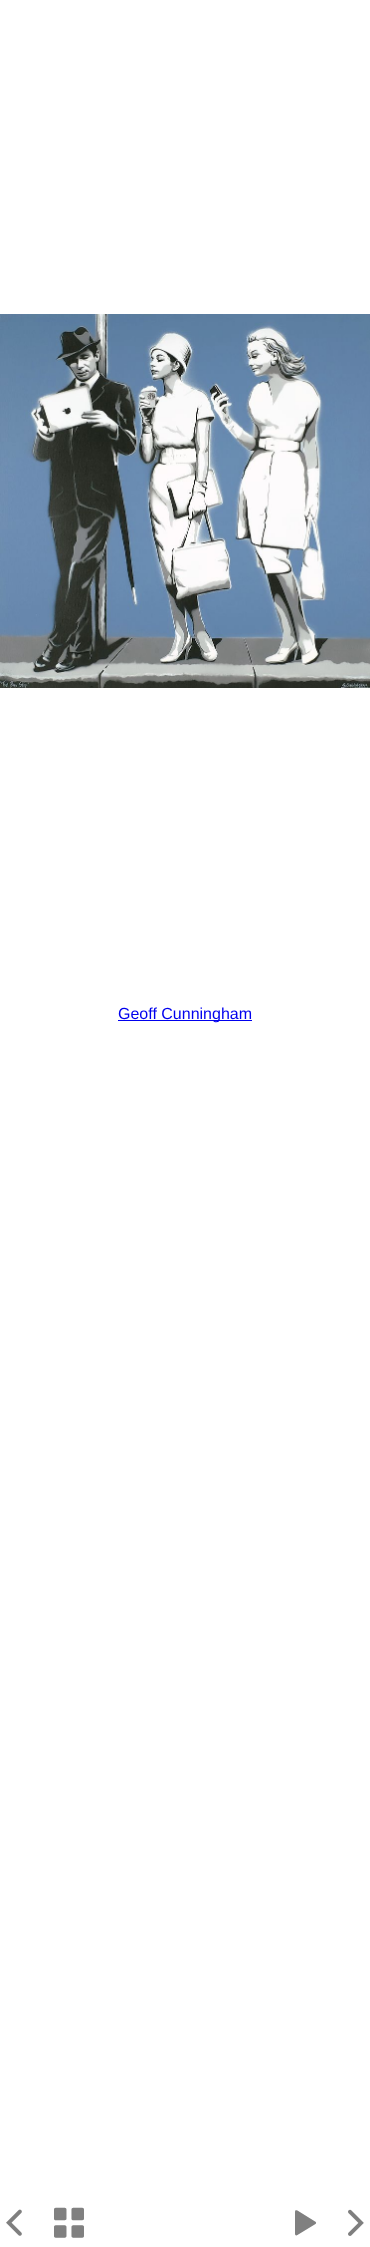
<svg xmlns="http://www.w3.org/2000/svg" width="370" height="2247">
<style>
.a{font:16px Liberation Sans;fill:#00e}
.b{font:32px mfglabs;fill:#808080}
</style>
<rect width="100%" height="100%" fill="#fff"/>
<image href="1.png" x="0" y="314" width="370" height="374"/>
<path fill="#00e" d="M118 1020h134v1H118z"/>
<image href="2.png" x="6" y="2209" width="16" height="27"/>
<image href="3.png" x="348" y="2209" width="16" height="27"/>
<text class="a" x="118" y="1019">Geoff Cunningham</text>
<text class="b" x="54" y="2234">⚏</text>
<text class="b" x="295" y="2234">▶</text>
</svg>
